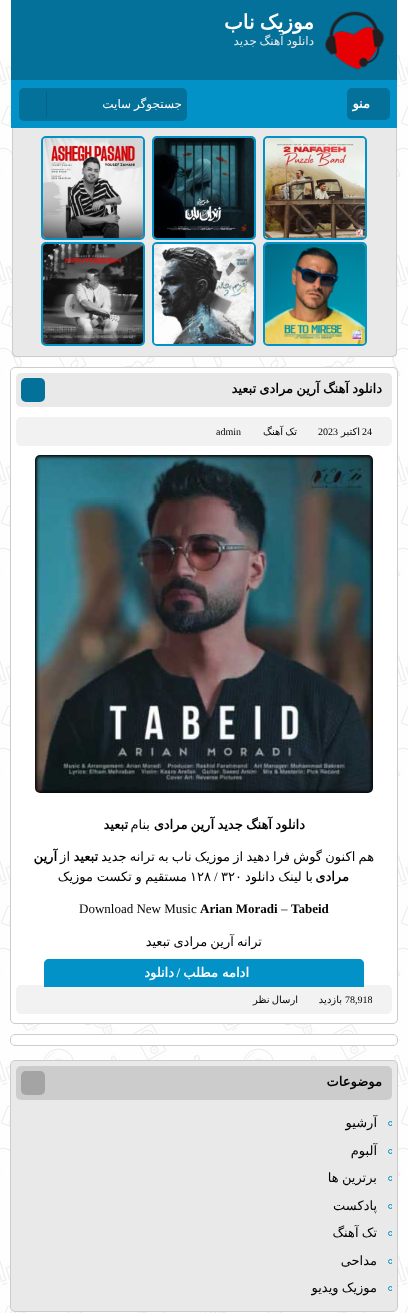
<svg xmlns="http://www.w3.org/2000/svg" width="408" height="1313">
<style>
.a{font:bold 20px DejaVu Sans;direction:rtl;fill:#fff}
.b{font:12px DejaVu Sans;direction:rtl;fill:#e9e9e9}
.c{font:bold 13px DejaVu Sans;direction:rtl;fill:#fff}
.d{font:12px DejaVu Sans;direction:rtl;fill:#fff}
.e{font:bold 13px DejaVu Sans;direction:rtl;fill:#000}
.f{font:10px Liberation Serif;fill:#000}
.g{font:10px DejaVu Sans;direction:rtl;fill:#000}
.h{font:13px DejaVu Sans;direction:rtl;fill:#000}
.i{font:13px DejaVu Sans;fill:#000}
.j{font:13px Liberation Serif;fill:#000}
.k{font:bold 13px Liberation Serif;fill:#000}
.l{font:bold 13px Liberation Serif;direction:rtl;fill:#fff}
</style>
<defs>
<clipPath id="clip1"><path d="M16 1105h376v201H16z"/></clipPath>
<clipPath id="clip2"><path d="M53 378h329v23H53z"/></clipPath>
</defs>
<rect width="100%" height="100%" fill="#fff"/>
<image href="1.png" x="0" y="55" width="408" height="1258"/>
<path fill="#037199" d="M11 0h386v80H11z"/>
<image href="2.png" x="325" y="11" width="60" height="59"/>
<path fill="#0292c7" d="M11 80h386v48H11z"/>
<rect fill="#037199" x="347" y="88" width="43" height="32" rx="5"/>
<rect fill="#037199" x="19" y="88" width="168" height="33" rx="5"/>
<path fill="#006387" d="M46 92h1v25H46z"/>
<path fill="#e9e9e9" d="M12 128h385v224c0 3-2 5-5 5h-375c-3 0-5-2-5-5z"/>
<path fill="#ccc" fill-rule="evenodd" d="M12 128h385v224c0 3-2 5-5 5h-375c-3 0-5-2-5-5zm1 0h383v224c0 2-2 4-4 4h-375c-2 0-4-2-4-4z"/>
<rect fill="none" stroke="#0292c7" stroke-width="2" x="264" y="137" width="102" height="102" rx="4"/>
<image href="3.png" x="265" y="138" width="100" height="100"/>
<rect fill="none" stroke="#0292c7" stroke-width="2" x="153" y="137" width="102" height="102" rx="4"/>
<image href="4.png" x="154" y="138" width="100" height="100"/>
<rect fill="none" stroke="#0292c7" stroke-width="2" x="42" y="137" width="102" height="102" rx="4"/>
<image href="5.png" x="43" y="138" width="100" height="100"/>
<rect fill="none" stroke="#0292c7" stroke-width="2" x="264" y="243" width="102" height="102" rx="4"/>
<image href="6.png" x="265" y="244" width="100" height="100"/>
<rect fill="none" stroke="#0292c7" stroke-width="2" x="153" y="243" width="102" height="102" rx="4"/>
<image href="7.png" x="154" y="244" width="100" height="100"/>
<rect fill="none" stroke="#0292c7" stroke-width="2" x="42" y="243" width="102" height="102" rx="4"/>
<image href="8.png" x="43" y="244" width="100" height="100"/>
<rect fill="#fff" stroke="#ccc" x="10.5" y="367.5" width="387" height="656" rx="4.5"/>
<rect fill="#e9e9e9" x="16" y="373" width="376" height="34" rx="5"/>
<rect fill="#037199" x="21" y="378" width="24" height="24" rx="5"/>
<rect fill="#f2f2f2" x="16" y="417" width="376" height="29" rx="5"/>
<image href="9.png" x="35" y="455" width="338" height="338"/>
<rect fill="#f2f2f2" x="16" y="985" width="376" height="29" rx="5"/>
<path fill="#0292c7" d="M49 959h310c3 0 5 2 5 5v23h-320v-23c0-3 2-5 5-5z"/>
<rect fill="#fff" stroke="#ccc" x="10.5" y="1034.5" width="387" height="11" rx="4.5"/>
<rect fill="#e9e9e9" stroke="#ccc" x="10.5" y="1060.5" width="387" height="251" rx="4.5"/>
<rect fill="#ccc" x="16" y="1066" width="376" height="34" rx="5"/>
<rect fill="#a4a4a4" x="21" y="1071" width="24" height="24" rx="5"/>
<g clip-path="url(#clip1)">
<circle fill="none" stroke="#0292c7" cx="390.5" cy="1123.5" r="2"/>
<circle fill="none" stroke="#0292c7" cx="390.5" cy="1151.5" r="2"/>
<circle fill="none" stroke="#0292c7" cx="390.5" cy="1178.5" r="2"/>
<circle fill="none" stroke="#0292c7" cx="390.5" cy="1206.5" r="2"/>
<circle fill="none" stroke="#0292c7" cx="390.5" cy="1233.5" r="2"/>
<circle fill="none" stroke="#0292c7" cx="390.5" cy="1261.5" r="2"/>
<circle fill="none" stroke="#0292c7" cx="390.5" cy="1288.5" r="2"/>
</g>
<text class="a" x="314" y="29" word-spacing="-1">موزیک ناب</text>
<text class="b" x="314" y="45" word-spacing="-1">دانلود آهنگ جدید</text>
<text class="c" x="370" y="108">منو</text>
<text class="d" x="182" y="108" word-spacing="-1">جستجوگر سایت</text>
<g clip-path="url(#clip2)">
<text class="e" x="382" y="393" word-spacing="-0.9">دانلود آهنگ آرین مرادی تبعید</text>
</g>
<text class="f" x="362" y="435">24</text>
<text class="g" x="360" y="435">اکتبر</text>
<text class="f" x="318" y="435">2023</text>
<text class="g" x="297" y="435" word-spacing="-1">تک آهنگ</text>
<text class="f" x="216" y="435">admin</text>
<text class="e" x="305" y="829" word-spacing="-0.9">دانلود آهنگ جدید</text>
<text class="e" x="214" y="829" word-spacing="-0.9">آرین مرادی</text>
<text class="h" x="150" y="829">بنام</text>
<text class="e" x="128" y="829">تبعید</text>
<text class="h" x="374" y="861" word-spacing="-0.9">هم اکنون گوش فرا دهید از موزیک ناب به ترانه جدید</text>
<text class="e" x="98" y="861">تبعید</text>
<text class="h" x="70" y="861">از</text>
<text class="e" x="57" y="861">آرین</text>
<text class="e" x="349" y="881">مرادی</text>
<text class="h" x="313" y="881" word-spacing="-0.5">با لینک دانلود</text>
<text class="i" x="221" y="881">۳۲۰</text>
<text class="j" x="214" y="881">/</text>
<text class="i" x="190" y="881">۱۲۸</text>
<text class="h" x="187" y="881" word-spacing="-0.5">مستقیم و تکست موزیک</text>
<text class="k" x="291" y="913">Tabeid</text>
<text class="j" x="281" y="913">–</text>
<text class="k" x="200" y="913">Arian Moradi</text>
<text class="j" x="79" y="913">Download New Music</text>
<text class="h" x="262" y="946" word-spacing="-0.9">ترانه آرین مرادی تبعید</text>
<text class="c" x="249" y="977">ادامه مطلب</text>
<text class="l" x="180" y="977">/</text>
<text class="c" x="174" y="977">دانلود</text>
<text class="f" x="345" y="1003">78,918</text>
<text class="g" x="342" y="1003">بازدید</text>
<text class="g" x="298" y="1003" word-spacing="-1">ارسال نظر</text>
<text class="e" x="382" y="1086">موضوعات</text>
<text class="h" x="377" y="1127">آرشیو</text>
<text class="h" x="377" y="1155">آلبوم</text>
<text class="h" x="377" y="1182" word-spacing="-0.9">برترین ها</text>
<text class="h" x="377" y="1210">پادکست</text>
<text class="h" x="377" y="1237" word-spacing="-0.9">تک آهنگ</text>
<text class="h" x="377" y="1265">مداحی</text>
<text class="h" x="377" y="1292" word-spacing="-0.9">موزیک ویدیو</text>
</svg>
